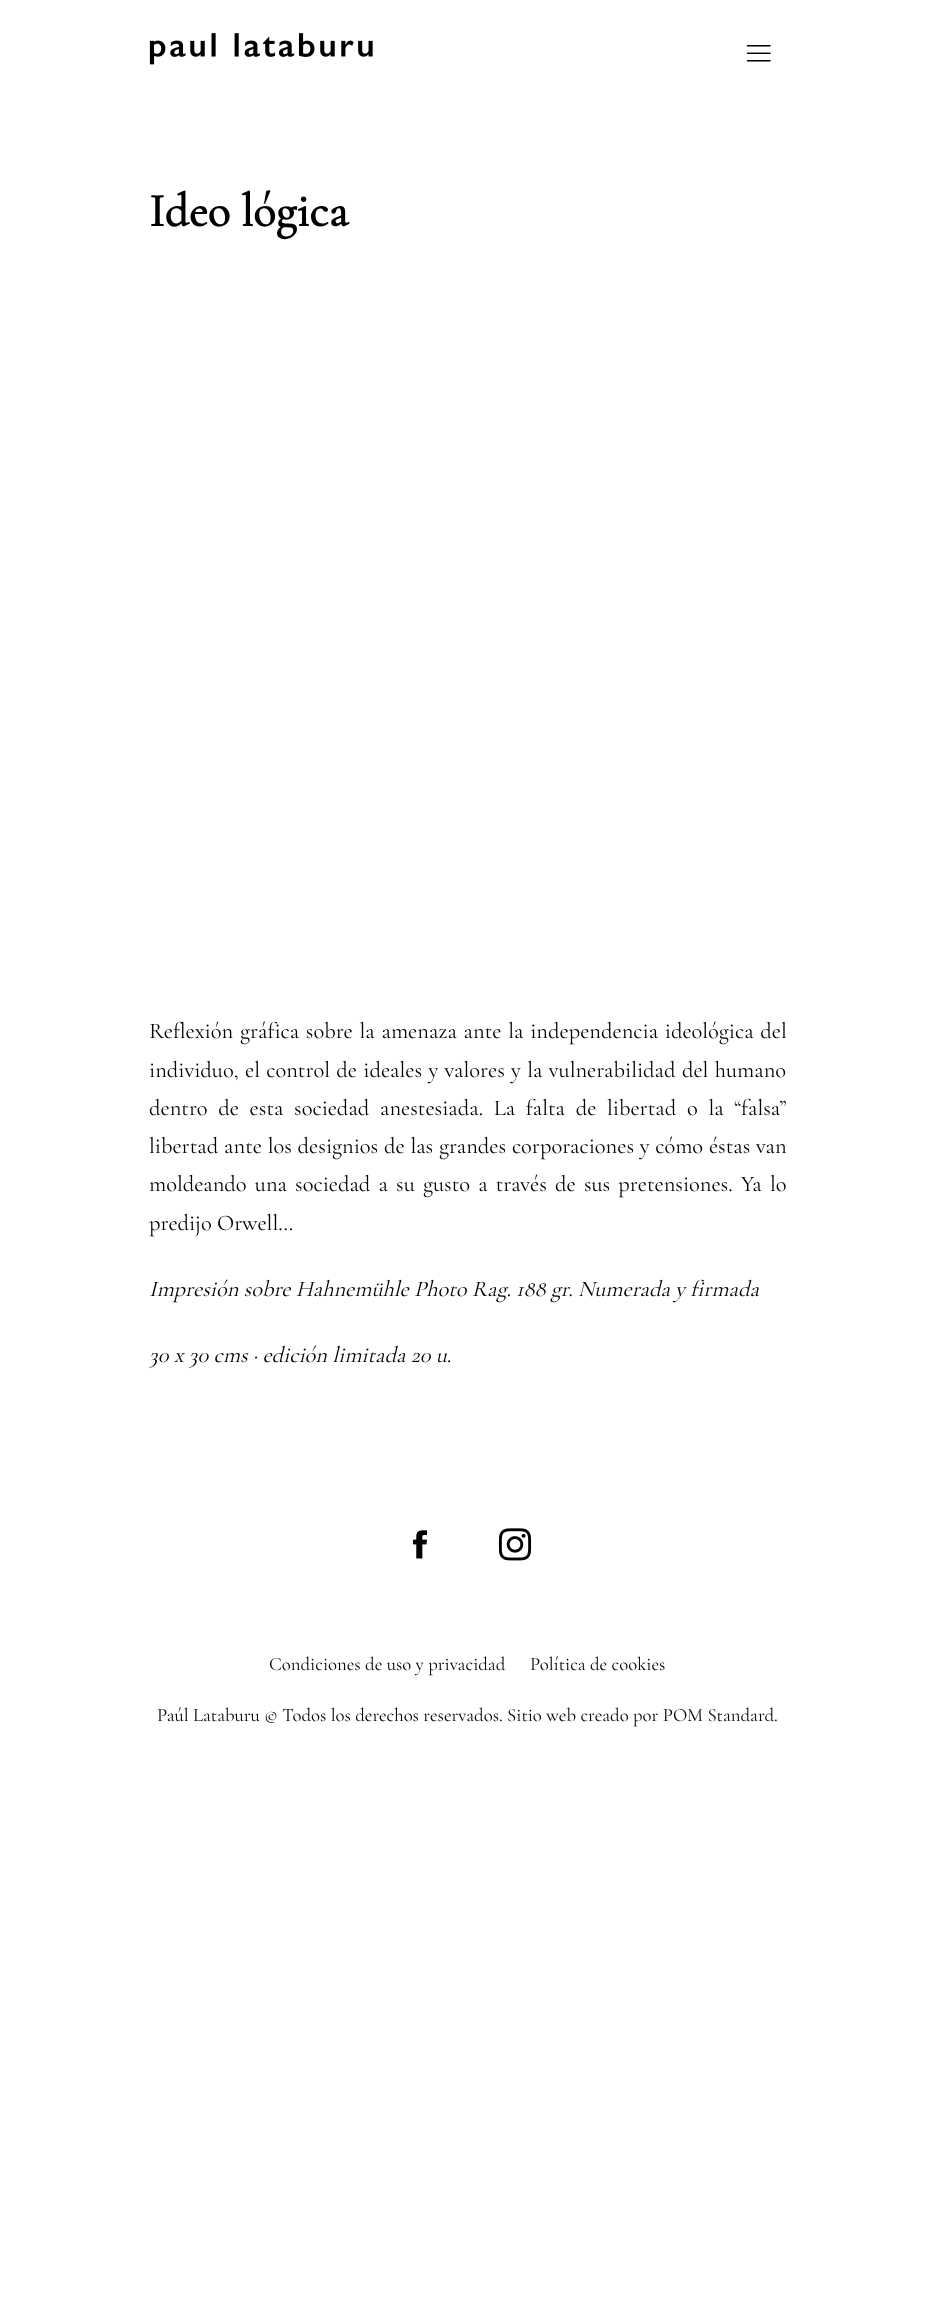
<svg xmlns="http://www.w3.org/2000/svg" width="934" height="2312">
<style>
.a{font:bold 47px Cormorant Garamond;fill:#000}
.b{font:22.5px Cormorant Garamond;fill:#000}
.c{font:italic 22.5px Cormorant Garamond;fill:#000}
.d{font:18.75px Cormorant Garamond;fill:#000}
</style>
<rect width="100%" height="100%" fill="#fff"/>
<image href="1.png" x="149" y="33" width="224" height="32"/>
<image href="2.png" x="746" y="45" width="25" height="17"/>
<image href="3.png" x="412" y="1530" width="16" height="29"/>
<image href="4.png" x="498" y="1528" width="34" height="33"/>
<text class="a" x="149" y="226">Ideo lógica</text>
<text class="b" x="149" y="1038" word-spacing="1.5">Reflexión gráfica sobre la amenaza ante la independencia ideológica del</text>
<text class="b" x="149" y="1077" word-spacing="1.1">individuo, el control de ideales y valores y la vulnerabilidad del humano</text>
<text class="b" x="149" y="1115" word-spacing="5.4">dentro de esta sociedad anestesiada. La falta de libertad o la “falsa”</text>
<text class="b" x="149" y="1153" word-spacing="0.5">libertad ante los designios de las grandes corporaciones y cómo éstas van</text>
<text class="b" x="149" y="1191" word-spacing="2.9">moldeando una sociedad a su gusto a través de sus pretensiones. Ya lo</text>
<text class="b" x="149" y="1230">predijo Orwell…</text>
<text class="c" x="149" y="1296">Impresión sobre Hahnemühle Photo Rag. 188 gr. Numerada y firmada</text>
<text class="c" x="149" y="1362">30 x 30 cms · edición limitada 20 u.</text>
<text class="d" x="269" y="1670">Condiciones de uso y privacidad</text>
<text class="d" x="530" y="1670">Política de cookies</text>
<text class="d" x="157" y="1721">Paúl Lataburu © Todos los derechos reservados. Sitio web creado por POM Standard.</text>
</svg>
